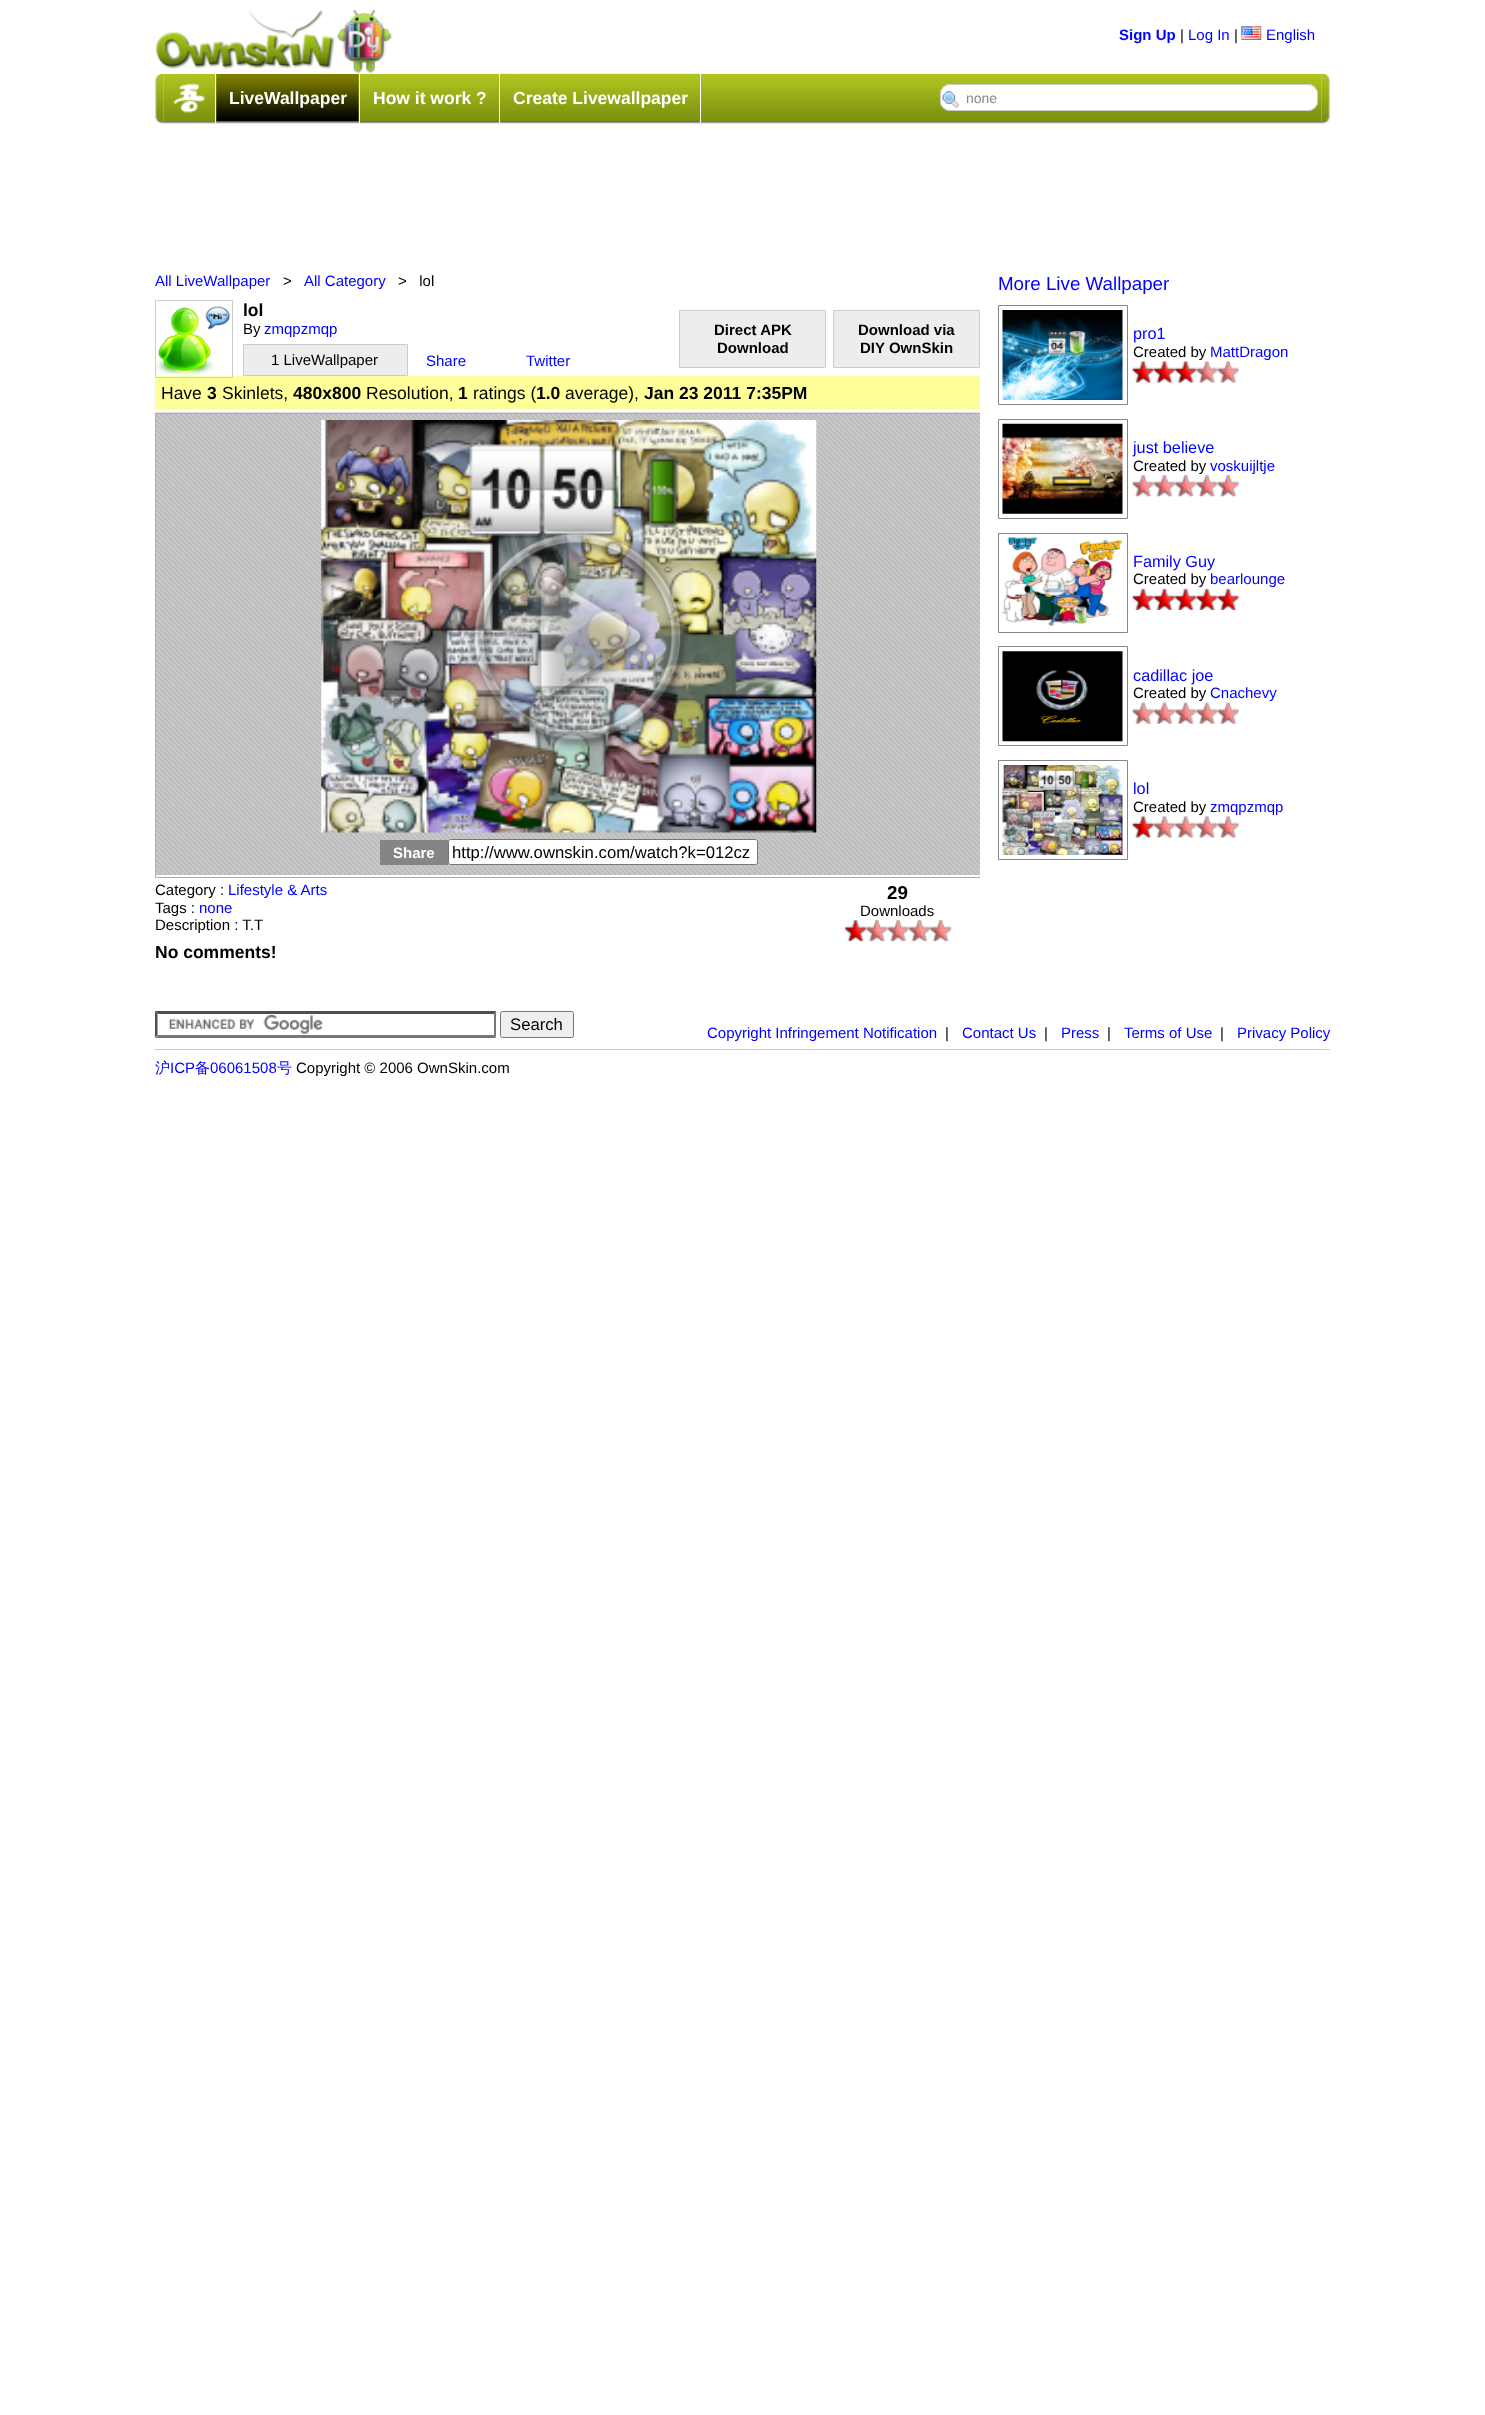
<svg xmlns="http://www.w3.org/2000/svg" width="1485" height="2415">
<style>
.a{font:bold 15px Liberation Sans;fill:#00f}
.b{font:15px Liberation Sans;fill:#000}
.c{font:15px Liberation Sans;fill:#00f}
.d{font:bold 17.5px Liberation Sans;fill:#fff}
.e{font:14px Liberation Sans;fill:#888}
.f{font:bold 17.5px Liberation Sans;fill:#000}
.g{font:bold 15px Liberation Sans;fill:#000}
.h{font:17.5px Liberation Sans;fill:#000}
.i{font:bold 15px Liberation Sans;fill:#fff}
.j{font:16.7px Liberation Sans;fill:#000}
.k{font:bold 18.75px Liberation Sans;fill:#000}
.l{font:18.75px Liberation Sans;fill:#00f}
.m{font:16.25px Liberation Sans;fill:#00f}
.n{font:500 15px WenQuanYi Zen Hei;fill:#00f}
</style>
<defs>
<clipPath id="clip1"><path d="M155 300h825v641H155z"/></clipPath>
<clipPath id="clip2"><path d="M453 843h300v18H453z"/></clipPath>
</defs>
<rect width="100%" height="100%" fill="#fff"/>
<image href="1.png" x="156" y="9" width="236" height="64"/>
<image href="2.png" x="1241" y="26" width="21" height="14"/>
<image href="3.png" x="155" y="73" width="9" height="51"/>
<image href="4.png" x="163" y="73" width="1159" height="51"/>
<path fill="#fff" d="M215 74h1v49H215z"/>
<image href="5.png" x="173" y="83" width="32" height="30"/>
<path fill="#fff" d="M359 74h1v50H359z"/>
<image href="6.png" x="216" y="74" width="143" height="48"/>
<path fill="#fff" d="M499 74h1v50H499z"/>
<image href="7.png" x="360" y="121" width="139" height="1"/>
<path fill="#fff" d="M700 74h1v50H700z"/>
<image href="8.png" x="500" y="73" width="200" height="49"/>
<rect fill="#fff" x="940" y="84" width="378" height="27" rx="10"/>
<image href="9.png" x="942" y="91" width="17" height="17"/>
<rect fill="none" stroke="#ccc" x="940.5" y="84.5" width="377" height="26" rx="9.5"/>
<image href="10.png" x="1321" y="73" width="9" height="51"/>
<path fill="#ff9" d="M155 376h825v33H155z"/>
<path fill="none" stroke="#ccc" d="M155.5 300.5h77v77H155.5z"/>
<image href="11.png" x="156" y="306" width="76" height="71"/>
<path fill="#ededed" stroke="#ccc" d="M243.5 344.5h164v31H243.5z"/>
<path fill="#ededed" stroke="#ccc" d="M679.5 310.5h146v57H679.5z"/>
<path fill="#ededed" stroke="#ccc" d="M833.5 310.5h146v57H833.5z"/>
<image href="12.png" x="155" y="412" width="825" height="463"/>
<g clip-path="url(#clip1)">
<path fill="none" stroke="#adadad" d="M155.5 413.5h827v464H155.5z"/>
</g>
<image href="13.png" x="321" y="420" width="496" height="413"/>
<image href="14.png" x="466" y="525" width="227" height="226"/>
<path fill="#858585" d="M380 840h68v25H380z"/>
<rect fill="#fff" stroke="#767676" x="448.5" y="839.5" width="309" height="25" rx="2"/>
<image href="15.png" x="845" y="920" width="22" height="22"/>
<image href="16.png" x="866" y="920" width="22" height="22"/>
<image href="17.png" x="887" y="920" width="22" height="22"/>
<image href="18.png" x="908" y="920" width="22" height="22"/>
<image href="19.png" x="930" y="920" width="22" height="22"/>
<path fill="none" stroke="#858585" d="M998.5 305.5h129v99H998.5z"/>
<image href="20.png" x="1002" y="310" width="121" height="90"/>
<image href="21.png" x="1132" y="361" width="22" height="22"/>
<image href="22.png" x="1153" y="361" width="22" height="22"/>
<image href="23.png" x="1175" y="361" width="22" height="22"/>
<image href="24.png" x="1196" y="361" width="22" height="22"/>
<image href="25.png" x="1217" y="361" width="22" height="22"/>
<path fill="none" stroke="#858585" d="M998.5 419.5h129v99H998.5z"/>
<image href="26.png" x="1002" y="423" width="121" height="91"/>
<image href="27.png" x="1132" y="475" width="22" height="22"/>
<image href="28.png" x="1153" y="475" width="22" height="22"/>
<image href="29.png" x="1175" y="475" width="22" height="22"/>
<image href="30.png" x="1196" y="475" width="22" height="22"/>
<image href="31.png" x="1217" y="475" width="22" height="22"/>
<path fill="none" stroke="#858585" d="M998.5 533.5h129v99H998.5z"/>
<image href="32.png" x="1002" y="537" width="121" height="90"/>
<image href="33.png" x="1132" y="588" width="22" height="22"/>
<image href="34.png" x="1153" y="588" width="22" height="22"/>
<image href="35.png" x="1175" y="588" width="22" height="22"/>
<image href="36.png" x="1196" y="588" width="22" height="22"/>
<image href="37.png" x="1217" y="588" width="22" height="22"/>
<path fill="none" stroke="#858585" d="M998.5 646.5h129v99H998.5z"/>
<image href="38.png" x="1002" y="651" width="121" height="91"/>
<image href="39.png" x="1132" y="702" width="22" height="22"/>
<image href="40.png" x="1153" y="702" width="22" height="22"/>
<image href="41.png" x="1175" y="702" width="22" height="22"/>
<image href="42.png" x="1196" y="702" width="22" height="22"/>
<image href="43.png" x="1217" y="702" width="22" height="22"/>
<path fill="none" stroke="#858585" d="M998.5 760.5h129v99H998.5z"/>
<image href="44.png" x="1002" y="765" width="121" height="90"/>
<image href="21.png" x="1132" y="816" width="22" height="22"/>
<image href="45.png" x="1153" y="816" width="22" height="22"/>
<image href="46.png" x="1175" y="816" width="22" height="22"/>
<image href="47.png" x="1196" y="816" width="22" height="22"/>
<image href="25.png" x="1217" y="816" width="22" height="22"/>
<image href="48.png" x="168" y="1015" width="155" height="19"/>
<path fill="#4f4f4f" d="M155 1011h341l-2 3h-336z"/>
<path fill="#767676" d="M496 1011v26.5l-2-2.5v-21z"/>
<path fill="#767676" d="M496 1038h-341l3-3h336z"/>
<path fill="#4f4f4f" d="M155 1037.5v-26.5l2.5 3v21z"/>
<rect fill="#efefef" stroke="#767676" x="500.5" y="1011.5" width="73" height="26" rx="2"/>
<path fill="#ccc" d="M155 1049h1175v1H155z"/>
<text class="a" x="1119" y="40">Sign Up</text>
<text class="b" x="1180" y="40">|</text>
<text class="c" x="1188" y="40">Log In</text>
<text class="b" x="1234" y="40">|</text>
<text class="c" x="1266" y="40">English</text>
<text class="d" x="229" y="104">LiveWallpaper</text>
<text class="d" x="373" y="104">How it work ?</text>
<text class="d" x="513" y="104">Create Livewallpaper</text>
<text class="e" x="966" y="103">none</text>
<text class="c" x="155" y="286">All LiveWallpaper</text>
<text class="b" x="283" y="286">&gt;</text>
<text class="c" x="304" y="286">All Category</text>
<text class="b" xml:space="preserve" x="398" y="286">&gt;   lol</text>
<text class="f" x="243" y="316">lol</text>
<text class="b" x="243" y="334">By</text>
<text class="c" x="264" y="334">zmqpzmqp</text>
<text class="b" x="271" y="365">1 LiveWallpaper</text>
<text class="g" x="714" y="335">Direct APK</text>
<text class="g" x="717" y="353">Download</text>
<text class="g" x="858" y="335">Download via</text>
<text class="g" x="860" y="353">DIY OwnSkin</text>
<text class="c" x="426" y="366">Share</text>
<text class="c" x="526" y="366">Twitter</text>
<text class="h" x="161" y="399">Have</text>
<text class="f" x="207" y="399">3</text>
<text class="h" x="222" y="399">Skinlets,</text>
<text class="f" x="293" y="399">480x800</text>
<text class="h" x="366" y="399">Resolution,</text>
<text class="f" x="458" y="399">1</text>
<text class="h" x="473" y="399">ratings (</text>
<text class="f" x="536" y="399">1.0</text>
<text class="h" x="565" y="399">average),</text>
<text class="f" x="644" y="399">Jan 23 2011 7:35PM</text>
<text class="i" x="393" y="858">Share</text>
<g clip-path="url(#clip2)">
<text class="j" x="452" y="858">http://www.ownskin.com/watch?k=012cz</text>
</g>
<text class="b" x="155" y="895">Category :</text>
<text class="c" x="228" y="895">Lifestyle &amp; Arts</text>
<text class="b" x="155" y="913">Tags :</text>
<text class="c" x="199" y="913">none</text>
<text class="b" x="155" y="930">Description : T.T</text>
<text class="k" x="887" y="899">29</text>
<text class="b" x="860" y="916">Downloads</text>
<text class="l" x="998" y="290">More Live Wallpaper</text>
<text class="m" x="1133" y="339">pro1</text>
<text class="b" x="1133" y="357">Created by</text>
<text class="c" x="1210" y="357">MattDragon</text>
<text class="m" x="1133" y="453">just believe</text>
<text class="b" x="1133" y="471">Created by</text>
<text class="c" x="1210" y="471">voskuijltje</text>
<text class="m" x="1133" y="567">Family Guy</text>
<text class="b" x="1133" y="584">Created by</text>
<text class="c" x="1210" y="584">bearlounge</text>
<text class="m" x="1133" y="681">cadillac joe</text>
<text class="b" x="1133" y="698">Created by</text>
<text class="c" x="1210" y="698">Cnachevy</text>
<text class="m" x="1133" y="794">lol</text>
<text class="b" x="1133" y="812">Created by</text>
<text class="c" x="1210" y="812">zmqpzmqp</text>
<text class="f" x="155" y="958">No comments!</text>
<text class="j" x="510" y="1030">Search</text>
<text class="c" x="707" y="1038">Copyright Infringement Notification</text>
<text class="b" x="945" y="1038">|</text>
<text class="c" x="962" y="1038">Contact Us</text>
<text class="b" x="1044" y="1038">|</text>
<text class="c" x="1061" y="1038">Press</text>
<text class="b" x="1107" y="1038">|</text>
<text class="c" x="1124" y="1038">Terms of Use</text>
<text class="b" x="1220" y="1038">|</text>
<text class="c" x="1237" y="1038">Privacy Policy</text>
<text class="n" x="155" y="1073">沪</text>
<text class="c" x="170" y="1073">ICP</text>
<text class="n" x="195" y="1073">备</text>
<text class="c" x="210" y="1073">06061508</text>
<text class="n" x="277" y="1073">号</text>
<text class="b" x="296" y="1073">Copyright © 2006 OwnSkin.com</text>
</svg>
